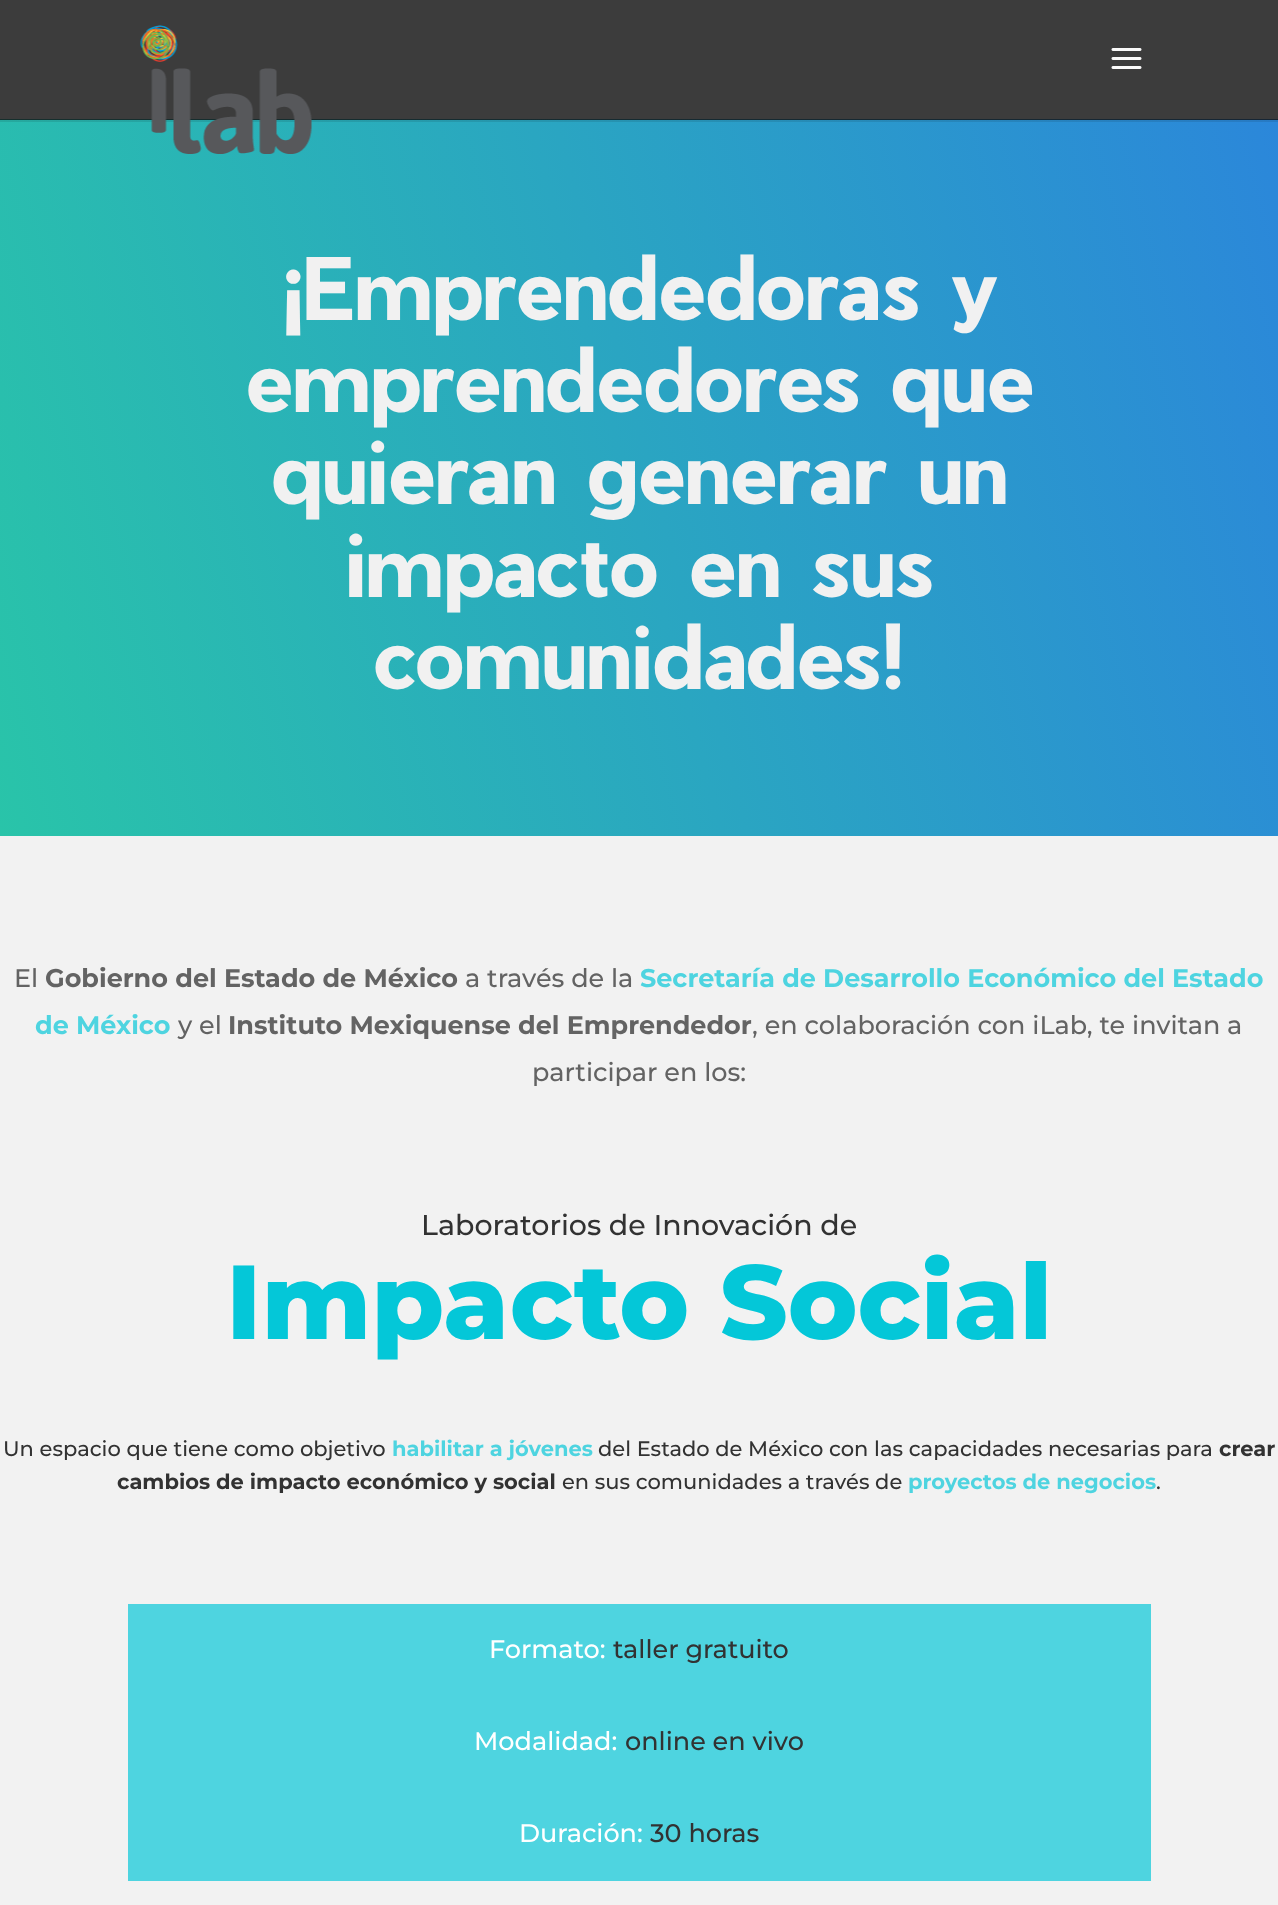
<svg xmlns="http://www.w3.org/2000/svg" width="1278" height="1905">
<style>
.a{font:bold 84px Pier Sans;fill:#f1f1f1}
.b{font:100 25.5px Montserrat;fill:#636363}
.c{font:100 25.5px 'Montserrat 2';fill:#636363}
.d{font:100 25.5px 'Montserrat 2';fill:#4ed4e0}
.e{font:100 28.5px Montserrat;fill:#323232}
.f{font:100 105px 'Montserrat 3';fill:#04c7d8}
.g{font:100 21px Montserrat;fill:#323232}
.h{font:100 21px 'Montserrat 2';fill:#4ed4e0}
.i{font:100 21px 'Montserrat 2';fill:#323232}
.j{font:100 25.5px Montserrat;fill:#fff}
.k{font:100 25.5px Montserrat;fill:#323232}
</style>
<defs>
<linearGradient id="g1" gradientUnits="userSpaceOnUse" x1="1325" y1="293" x2="-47" y2="661"><stop offset="0" stop-color="#2b87da"/><stop offset="1" stop-color="#29c4a9"/></linearGradient>
<linearGradient id="g2" gradientUnits="userSpaceOnUse" x1="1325" y1="293" x2="-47" y2="661"><stop offset="0" stop-color="#162635"/><stop offset="1" stop-color="#15312c"/></linearGradient>
<linearGradient id="g3" gradientUnits="userSpaceOnUse" x1="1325" y1="293" x2="-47" y2="661"><stop offset="0" stop-color="#277ac4"/><stop offset="1" stop-color="#25b098"/></linearGradient>
</defs>
<rect width="100%" height="100%" fill="#3c3c3c"/>
<path fill="url(#g1)" d="M0 122h1278v714H0z"/>
<path fill="url(#g2)" d="M0 119h1278v1H0z"/>
<path fill="url(#g3)" d="M0 120h1278v2H0z"/>
<image href="1.png" x="140" y="25" width="172" height="129"/>
<image href="2.png" x="1111" y="48" width="31" height="21"/>
<path fill="#f2f2f2" d="M0 836h1278v1069H0z"/>
<path fill="#4ed4e0" d="M128 1604h1023v277H128z"/>
<text class="a" x="281" y="320">¡Emprendedoras y</text>
<text class="a" x="245" y="412">emprendedores que</text>
<text class="a" x="271" y="504">quieran generar un</text>
<text class="a" x="345" y="597">impacto en sus</text>
<text class="a" x="373" y="689">comunidades!</text>
<text class="b" x="14" y="987">El</text>
<text class="c" x="45" y="987">Gobierno del Estado de México</text>
<text class="b" x="465" y="987">a través de la</text>
<text class="d" x="640" y="987">Secretaría de Desarrollo Económico del Estado</text>
<text class="d" x="35" y="1034">de México</text>
<text class="b" x="178" y="1034">y el</text>
<text class="c" x="228" y="1034">Instituto Mexiquense del Emprendedor</text>
<text class="b" x="752" y="1034">, en colaboración con iLab, te invitan a</text>
<text class="b" x="532" y="1081">participar en los:</text>
<text class="e" x="421" y="1235">Laboratorios de Innovación de</text>
<text class="f" x="226" y="1339">Impacto Social</text>
<text class="g" x="3" y="1456">Un espacio que tiene como objetivo</text>
<text class="h" x="392" y="1456">habilitar a jóvenes</text>
<text class="g" x="598" y="1456">del Estado de México con las capacidades necesarias para</text>
<text class="i" x="1219" y="1456">crear</text>
<text class="i" x="117" y="1489">cambios de impacto económico y social</text>
<text class="g" x="562" y="1489">en sus comunidades a través de</text>
<text class="h" x="908" y="1489">proyectos de negocios</text>
<text class="g" x="1156" y="1489">.</text>
<text class="j" x="489" y="1658">Formato:</text>
<text class="k" x="613" y="1658">taller gratuito</text>
<text class="j" x="474" y="1750">Modalidad:</text>
<text class="k" x="625" y="1750">online en vivo</text>
<text class="j" x="519" y="1842">Duración:</text>
<text class="k" x="650" y="1842">30 horas</text>
</svg>
